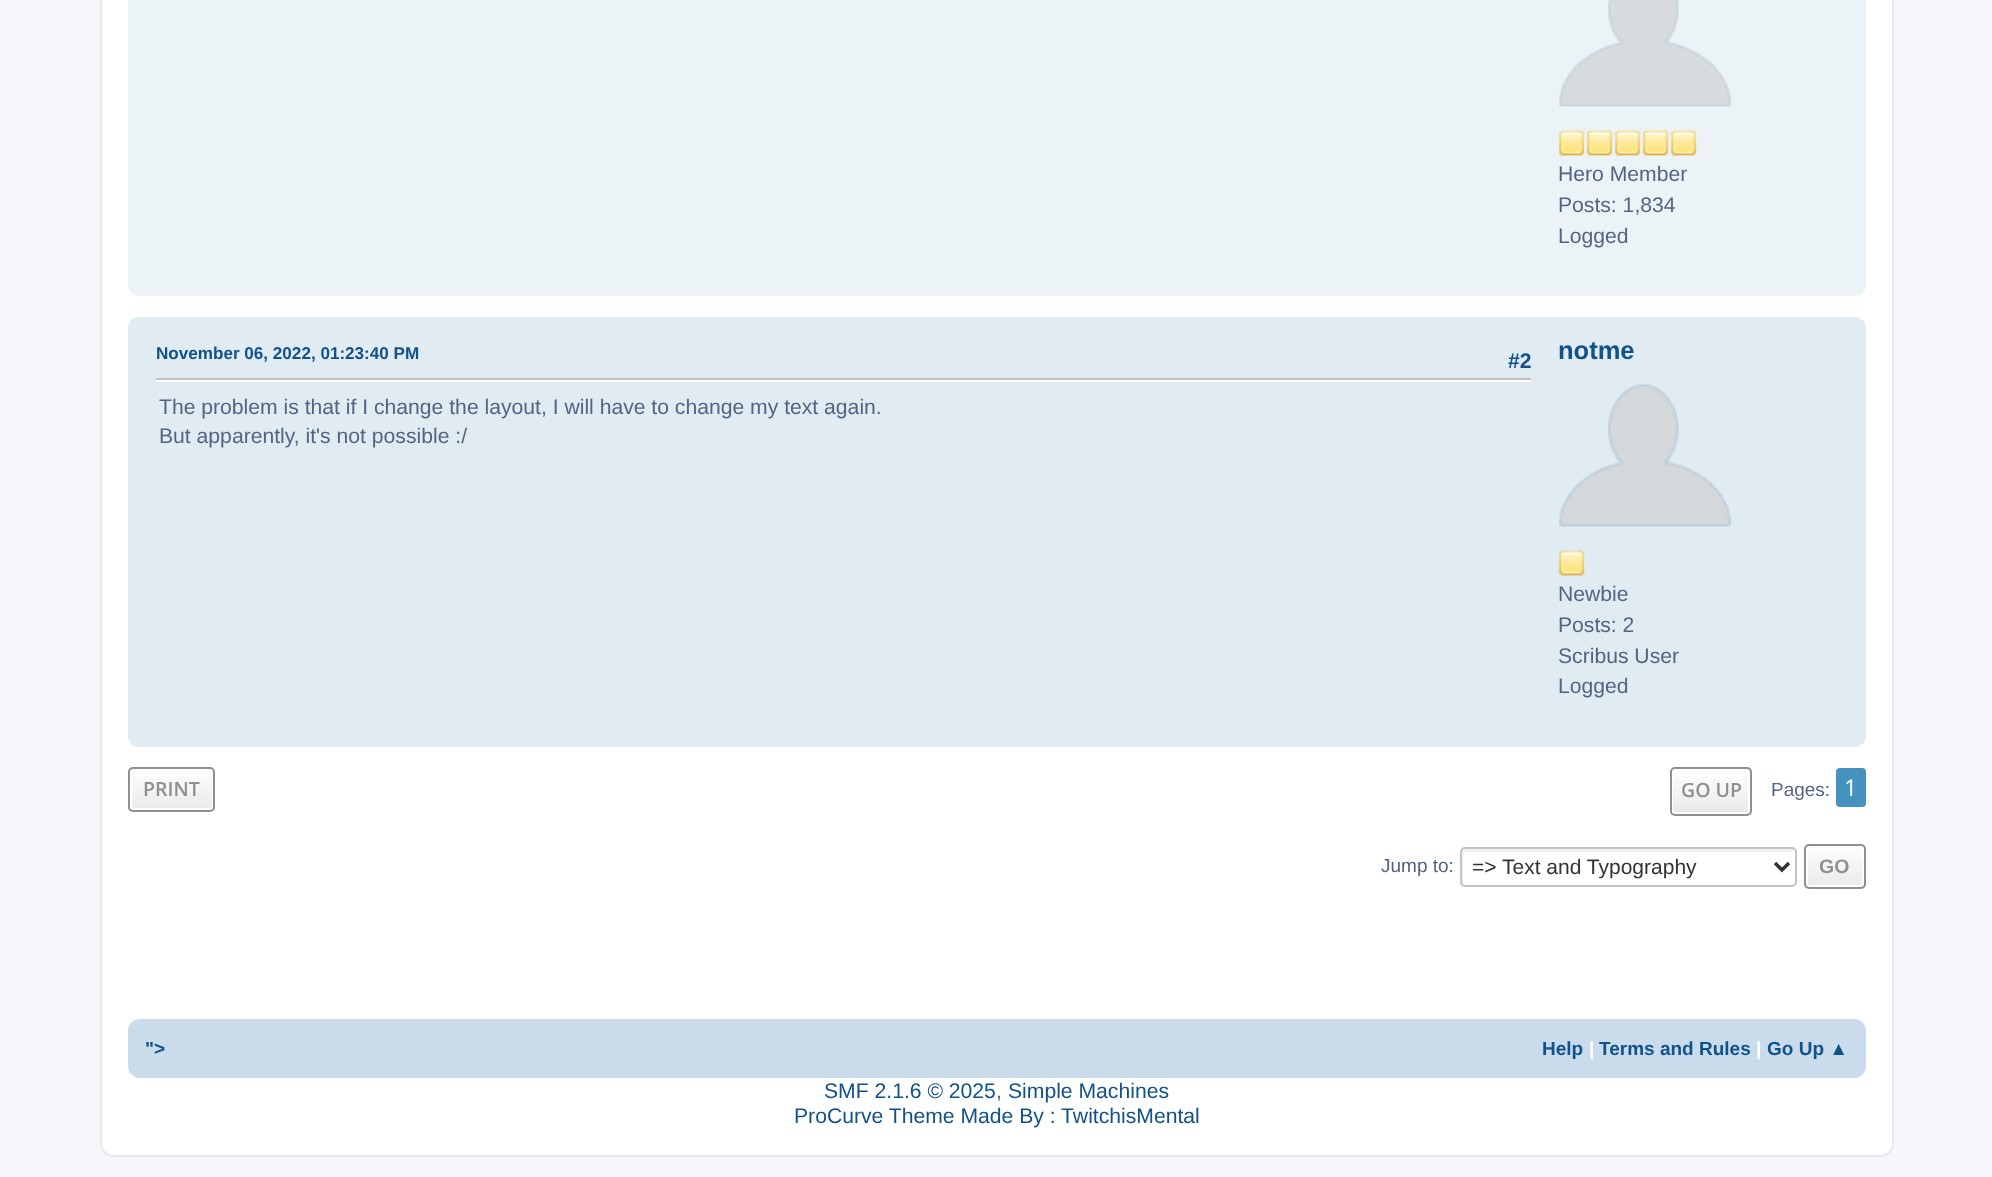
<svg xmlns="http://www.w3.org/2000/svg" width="1992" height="1177">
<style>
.a{font:21.15px Liberation Sans;fill:#536482}
.b{font:bold 17.1px Liberation Sans;fill:#105289}
.c{font:bold 21.15px Liberation Sans;fill:#105289}
.d{font:bold 25.5px Liberation Sans;fill:#105289}
.e{font:600 19.5px Open Sans;fill:#8f8f8f}
.f{font:19px Liberation Sans;fill:#536482}
.g{font:23px Open Sans;fill:#fff}
.h{font:21px Liberation Sans;fill:#333}
.i{font:bold 19.5px Liberation Sans;fill:#8f8f8f}
.j{font:bold 19px Liberation Sans;fill:#105289}
.k{font:bold 19px Liberation Sans;fill:#fff}
.l{font:21.15px Liberation Sans;fill:#105289}
</style>
<defs>
<clipPath id="clip1"><rect x="128" y="767" width="87" height="45" rx="5"/></clipPath>
<linearGradient id="g1" gradientUnits="userSpaceOnUse" x1="172" y1="768" x2="172" y2="810"><stop offset="0" stop-color="#fff"/><stop offset="1" stop-color="#e9e9e9"/></linearGradient>
<clipPath id="clip2"><rect x="1670" y="767" width="82" height="49" rx="5"/></clipPath>
<linearGradient id="g2" gradientUnits="userSpaceOnUse" x1="1711" y1="768" x2="1711" y2="814"><stop offset="0" stop-color="#fff"/><stop offset="1" stop-color="#e9e9e9"/></linearGradient>
<clipPath id="clip3"><rect x="1804" y="844" width="62" height="45" rx="5"/></clipPath>
<linearGradient id="g3" gradientUnits="userSpaceOnUse" x1="1835" y1="845" x2="1835" y2="887"><stop offset="0" stop-color="#fff"/><stop offset="1" stop-color="#e9e9e9"/></linearGradient>
</defs>
<rect width="100%" height="100%" fill="#f5f7fa"/>
<rect fill="#fff" stroke="#e6e9ed" stroke-width="2" x="101" y="-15" width="1792" height="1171" rx="13"/>
<rect fill="#ecf3f7" x="128" y="-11" width="1738" height="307" rx="11"/>
<image href="1.png" x="1559" y="0" width="173" height="107"/>
<image href="2.png" x="1558" y="130" width="27" height="26"/>
<image href="3.png" x="1586" y="130" width="27" height="26"/>
<image href="3.png" x="1614" y="130" width="27" height="26"/>
<image href="3.png" x="1642" y="130" width="27" height="26"/>
<image href="3.png" x="1670" y="130" width="27" height="26"/>
<rect fill="#e1ebf2" x="128" y="317" width="1738" height="430" rx="11"/>
<path fill="#fff" d="M156 380h1375v2H156z"/>
<path fill="#bfbfbf" d="M156 378h1375v2H156z"/>
<image href="4.png" x="1559" y="384" width="173" height="143"/>
<image href="5.png" x="1558" y="550" width="27" height="26"/>
<g clip-path="url(#clip1)">
<path fill="url(#g1)" d="M128 768h87v42H128z"/>
</g>
<rect fill="none" stroke="#fff" stroke-width="2" x="131" y="769" width="82" height="40" rx="3"/>
<rect fill="none" stroke="#8f8f8f" stroke-width="2" x="129" y="768" width="85" height="43" rx="4"/>
<g clip-path="url(#clip2)">
<path fill="url(#g2)" d="M1670 768h82v46H1670z"/>
</g>
<rect fill="none" stroke="#fff" stroke-width="2" x="1672" y="769" width="77" height="44" rx="3"/>
<rect fill="none" stroke="#8f8f8f" stroke-width="2" x="1671" y="768" width="80" height="47" rx="4"/>
<rect fill="#4692bf" x="1836" y="768" width="30" height="39" rx="4"/>
<path fill="#ecf1f8" d="M1466 852h328l2 1c0-2-2-4-4-4h-327c-2 0-4 2-4 4v29c0 1 1 3 2 3v-29c0-2 2-4 3-4z"/>
<rect fill="none" stroke="#c7c3bf" stroke-width="2" x="1461" y="848" width="335" height="38" rx="4"/>
<path fill="none" stroke="#333" stroke-width="3.5" d="M1775 863l7 7l7-7"/>
<g clip-path="url(#clip3)">
<path fill="url(#g3)" d="M1804 845h62v42H1804z"/>
</g>
<rect fill="none" stroke="#fff" stroke-width="2" x="1807" y="846" width="56" height="40" rx="3"/>
<rect fill="none" stroke="#8f8f8f" stroke-width="2" x="1805" y="845" width="60" height="43" rx="4"/>
<rect fill="#cadceb" x="128" y="1019" width="1738" height="59" rx="12"/>
<text class="a" x="1558" y="181">Hero Member</text>
<text class="a" x="1558" y="212">Posts: 1,834</text>
<text class="a" x="1558" y="243">Logged</text>
<text class="b" x="156" y="359">November 06, 2022, 01:23:40 PM</text>
<text class="c" x="1508" y="368">#2</text>
<text class="a" x="159" y="414">The problem is that if I change the layout, I will have to change my text again.</text>
<text class="a" x="159" y="443">But apparently, it's not possible :/</text>
<text class="d" x="1558" y="359">notme</text>
<text class="a" x="1558" y="601">Newbie</text>
<text class="a" x="1558" y="632">Posts: 2</text>
<text class="a" x="1558" y="663">Scribus User</text>
<text class="a" x="1558" y="693">Logged</text>
<text class="e" x="143" y="796">PRINT</text>
<text class="e" x="1681" y="797">GO UP</text>
<text class="f" x="1771" y="796">Pages:</text>
<text class="g" x="1844" y="796">1</text>
<text class="f" x="1381" y="872">Jump to:</text>
<text class="h" x="1472" y="874">=&gt; Text and Typography</text>
<text class="i" x="1819" y="873">GO</text>
<text class="j" x="145" y="1055">"&gt;</text>
<text class="j" x="1542" y="1055">Help</text>
<text class="k" x="1589" y="1055">|</text>
<text class="j" x="1599" y="1055">Terms and Rules</text>
<text class="k" x="1756" y="1055">|</text>
<text class="j" x="1767" y="1055">Go Up ▲</text>
<text class="l" x="824" y="1098">SMF 2.1.6 © 2025</text>
<text class="a" x="996" y="1098">,</text>
<text class="l" x="1008" y="1098">Simple Machines</text>
<text class="l" x="794" y="1123">ProCurve Theme Made By : TwitchisMental</text>
</svg>
